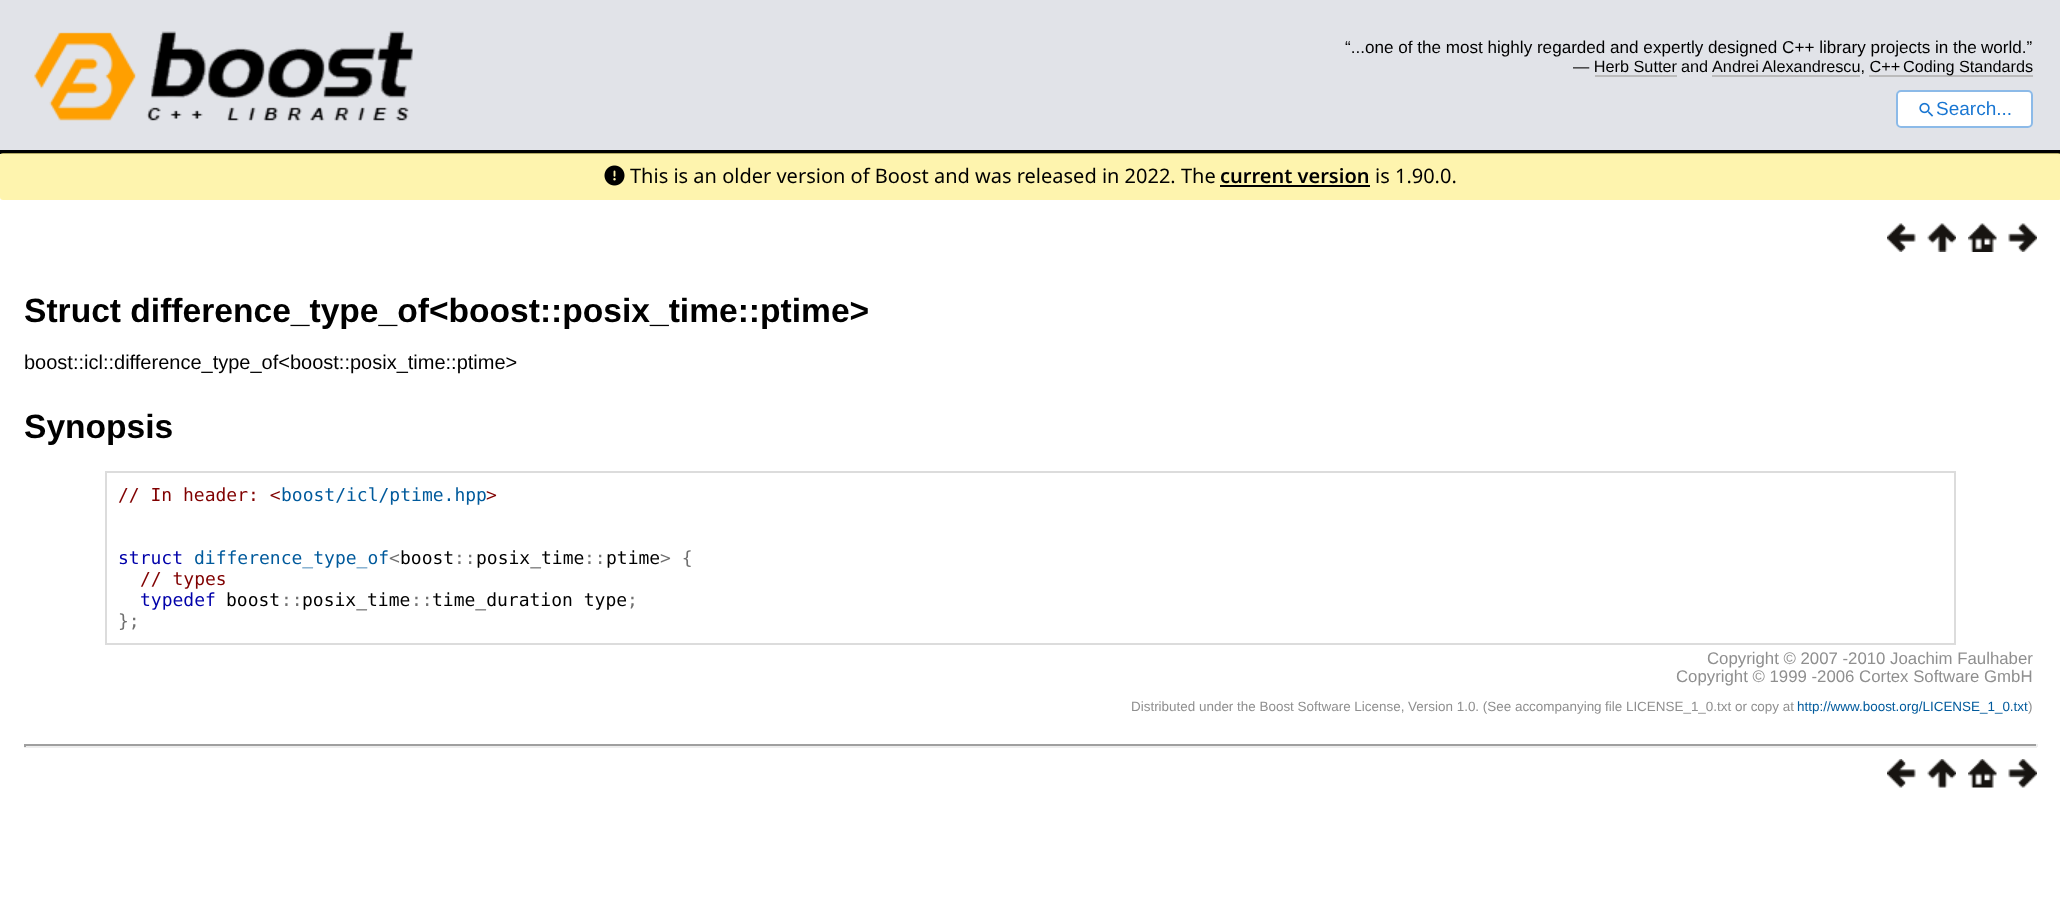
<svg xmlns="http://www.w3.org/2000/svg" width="2060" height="922">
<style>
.a{font:17.1px Liberation Sans;fill:#000}
.b{font:16.25px Liberation Sans;fill:#000}
.c{font:19px Liberation Sans;fill:#1976d2}
.d{font:20px Noto Sans;fill:#000}
.e{font:600 20px Noto Sans;fill:#000}
.f{font:bold 33.6px Liberation Sans;fill:#000}
.g{font:20px Liberation Sans;fill:#000}
.h{font:18px DejaVu Sans Mono;fill:#800000}
.i{font:18px DejaVu Sans Mono;fill:#005a9c}
.j{font:18px DejaVu Sans Mono;fill:#00a}
.k{font:18px DejaVu Sans Mono;fill:#707070}
.l{font:18px DejaVu Sans Mono;fill:#000}
.m{font:16.8px Liberation Sans;fill:#8f8f8f}
.n{font:13.45px Liberation Sans;fill:#8f8f8f}
.o{font:13.45px Liberation Sans;fill:#005a9c}
</style>
<rect width="100%" height="100%" fill="#fff"/>
<path fill="#e1e3e8" d="M0 0h2060v150H0z"/>
<path fill="#000" d="M0 150h2060v4H0z"/>
<image href="1.png" x="34" y="31" width="379" height="90"/>
<path fill="#bbb" d="M1712 75h148v2H1712z"/>
<path fill="#bbb" d="M1869 75h164v2H1869z"/>
<path fill="#bbb" d="M1595 75h82v2H1595z"/>
<rect fill="#fff" x="1896" y="90" width="137" height="38" rx="5"/>
<rect fill="none" stroke="#1976d280" stroke-width="2" x="1897" y="91" width="135" height="36" rx="4"/>
<image href="2.png" x="1919" y="102" width="15" height="15"/>
<rect fill="#fef08bb3" y="153" width="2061" height="47" rx="3"/>
<image href="3.png" x="604" y="165" width="21" height="21"/>
<path fill="#000" d="M1220 185h150v2H1220z"/>
<image href="4.png" x="1887" y="223" width="29" height="29"/>
<image href="5.png" x="1927" y="223" width="29" height="29"/>
<image href="6.png" x="1968" y="223" width="29" height="29"/>
<image href="7.png" x="2008" y="223" width="29" height="29"/>
<path fill="none" stroke="#dcdcdc" stroke-width="2" d="M106 472h1849v172H106z"/>
<path fill="#9f9f9f" d="M24 744h2013v2H24z"/>
<path fill="#eee" d="M2036 744h2v3H2036z"/>
<path fill="#eee" d="M24 746h2013v2H24z"/>
<path fill="#9f9f9f" d="M24 744h2v3H24z"/>
<image href="8.png" x="1887" y="759" width="29" height="29"/>
<image href="9.png" x="1927" y="759" width="29" height="29"/>
<image href="10.png" x="1968" y="759" width="29" height="29"/>
<image href="11.png" x="2008" y="759" width="29" height="29"/>
<text class="a" x="1345" y="53">“...one of the most highly regarded and expertly designed C++ library projects in the</text>
<text class="a" x="1981" y="53">world.”</text>
<text class="b" x="1573" y="72">— Herb Sutter</text>
<text class="b" x="1681" y="72">and</text>
<text class="b" x="1712" y="72">Andrei</text>
<text class="b" x="1762" y="72">Alexandrescu, C++</text>
<text class="b" x="1903" y="72">Coding Standards</text>
<text class="c" x="1936" y="115">Search...</text>
<text class="d" x="630" y="183">This is an older version of Boost and was released in 2022. The</text>
<text class="e" x="1220" y="183">current version</text>
<text class="d" x="1375" y="183">is 1.90.0.</text>
<text class="f" x="24" y="322">Struct difference_type_of&lt;boost::posix_time::ptime&gt;</text>
<text class="g" x="24" y="369">boost::icl::difference_type_of&lt;boost::posix_time::ptime&gt;</text>
<text class="f" x="24" y="438">Synopsis</text>
<text class="h" x="118" y="501">// In header: &lt;</text>
<text class="i" x="281" y="501">boost/icl/ptime.hpp</text>
<text class="h" x="486" y="501">&gt;</text>
<text class="j" x="118" y="564">struct</text>
<text class="i" x="194" y="564">difference_type_of</text>
<text class="k" x="389" y="564">&lt;</text>
<text class="l" x="400" y="564">boost</text>
<text class="k" x="454" y="564">::</text>
<text class="l" x="476" y="564">posix_time</text>
<text class="k" x="584" y="564">::</text>
<text class="l" x="606" y="564">ptime</text>
<text class="k" x="660" y="564">&gt; {</text>
<text class="h" x="140" y="585">// types</text>
<text class="j" x="140" y="606">typedef</text>
<text class="l" x="226" y="606">boost</text>
<text class="k" x="281" y="606">::</text>
<text class="l" x="302" y="606">posix_time</text>
<text class="k" x="411" y="606">::</text>
<text class="l" x="432" y="606">time_duration type</text>
<text class="k" x="627" y="606">;</text>
<text class="k" x="118" y="627">};</text>
<text class="m" x="1707" y="664">Copyright © 2007 -2010 Joachim Faulhaber</text>
<text class="m" x="1676" y="682">Copyright © 1999 -2006 Cortex Software GmbH</text>
<text class="n" x="1131" y="711">Distributed under the Boost Software License, Version 1.0. (See accompanying</text>
<text class="n" x="1605" y="711">file LICENSE_1_0.txt or copy at</text>
<text class="o" x="1797" y="711">http://www.boost.org/LICENSE_1_0.txt</text>
<text class="n" x="2028" y="711">)</text>
</svg>
